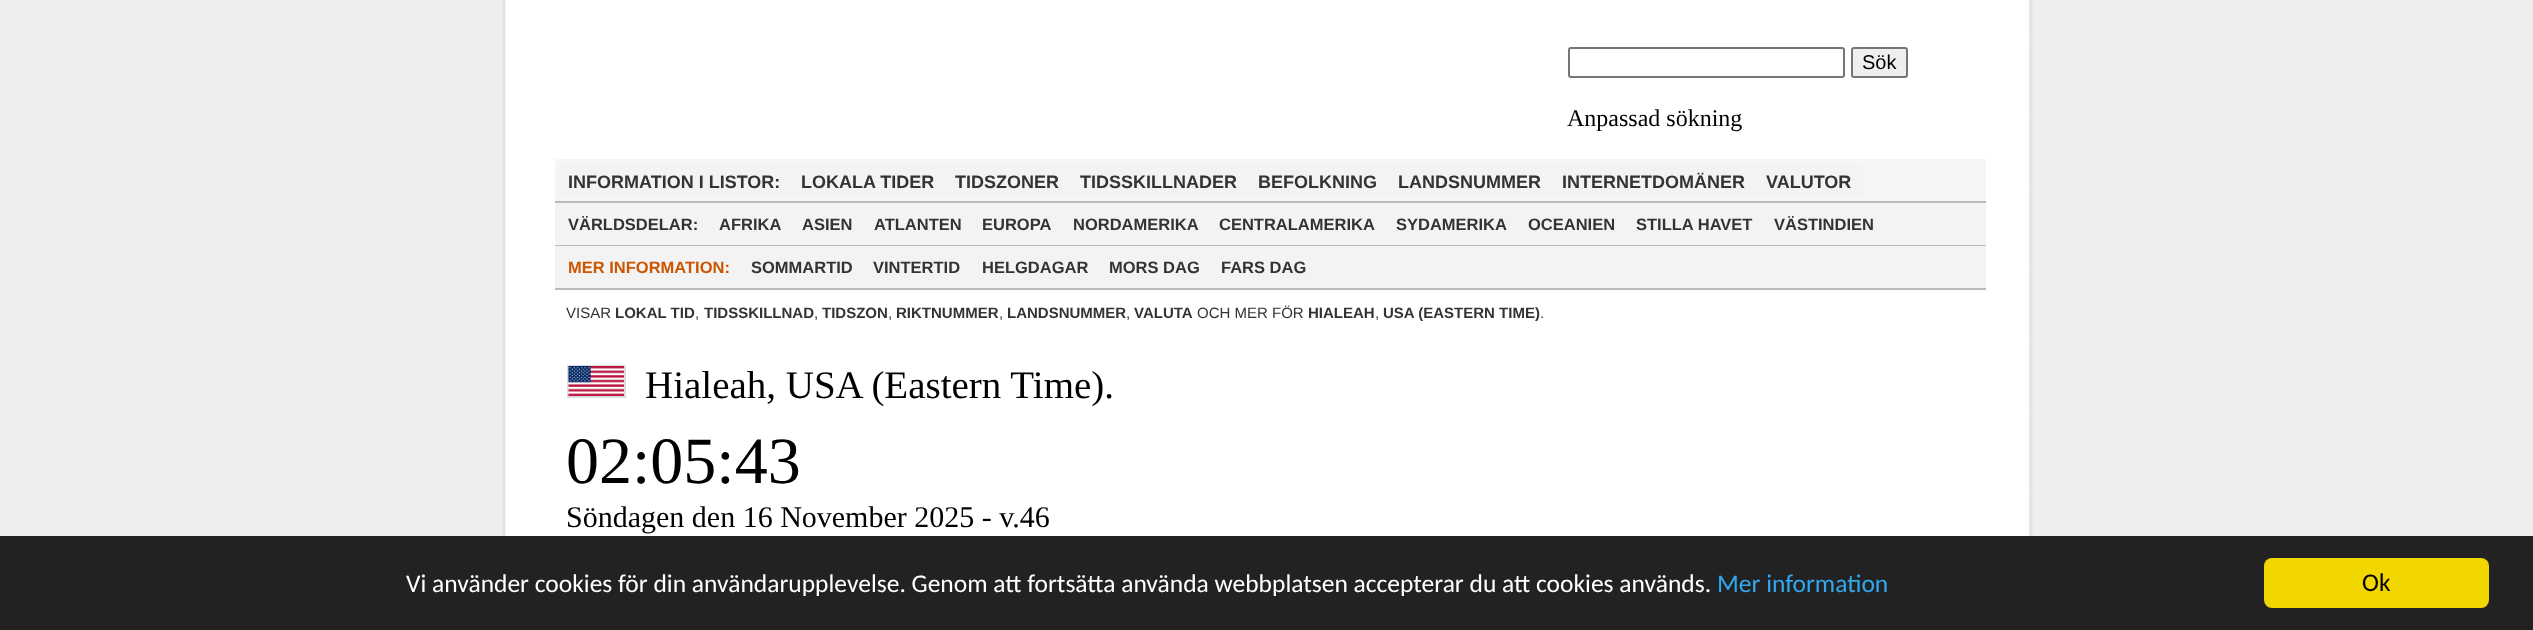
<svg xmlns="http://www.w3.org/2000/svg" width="2533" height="630">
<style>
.a{font:20px Liberation Sans;fill:#000}
.b{font:24px Liberation Serif;fill:#000}
.c{font:bold 18px Liberation Sans;fill:#333}
.d{font:bold 16.5px Liberation Sans;fill:#333}
.e{font:bold 16.5px Liberation Sans;fill:#c50}
.f{font:15px Liberation Sans;fill:#333}
.g{font:bold 15px Liberation Sans;fill:#333}
.h{font:39px Liberation Serif;fill:#000}
.i{font:66px Liberation Serif;fill:#000}
.j{font:30px Liberation Serif;fill:#000}
.k{font:25.5px Carlito;fill:#fff}
.l{font:25.5px Carlito;fill:#31a8f0}
.m{font:25.5px Carlito;fill:#000}
</style>
<rect width="100%" height="100%" fill="#eee"/>
<image href="1.png" x="502" y="0" width="1531" height="536"/>
<rect fill="none" stroke="#767676" stroke-width="2" x="1569" y="48" width="275" height="29" rx="2"/>
<rect fill="#efefef" stroke="#767676" stroke-width="2" x="1852" y="48" width="55" height="29" rx="2"/>
<path fill="#f6f6f6" d="M555 159h1431v42H555z"/>
<path fill="#bbb" d="M555 201h1431v2H555z"/>
<path fill="#f3f3f3" d="M558 165h1305v32H558z"/>
<path fill="#f3f3f3" d="M555 203h1431v42H555z"/>
<path fill="#bbb" d="M555 245h1431v1H555z"/>
<path fill="#f3f3f3" d="M555 246h1431v42H555z"/>
<path fill="#bbb" d="M555 288h1431v2H555z"/>
<path fill="none" stroke="#ddd" stroke-width="2" d="M568 366h57v31H568z"/>
<image href="2.png" x="568" y="366" width="56" height="30"/>
<path fill="#222" d="M0 536h2533v94H0z"/>
<rect fill="#f1d600" x="2264" y="558" width="225" height="50" rx="8"/>
<text class="a" x="1862" y="69">Sök</text>
<text class="b" x="1567" y="126">Anpassad sökning</text>
<text class="c" x="568" y="188">INFORMATION I LISTOR:</text>
<text class="c" x="801" y="188">LOKALA TIDER</text>
<text class="c" x="955" y="188">TIDSZONER</text>
<text class="c" x="1080" y="188">TIDSSKILLNADER</text>
<text class="c" x="1258" y="188">BEFOLKNING</text>
<text class="c" x="1398" y="188">LANDSNUMMER</text>
<text class="c" x="1562" y="188">INTERNETDOMÄNER</text>
<text class="c" x="1766" y="188">VALUTOR</text>
<text class="d" x="568" y="230">VÄRLDSDELAR:</text>
<text class="d" x="719" y="230">AFRIKA</text>
<text class="d" x="802" y="230">ASIEN</text>
<text class="d" x="874" y="230">ATLANTEN</text>
<text class="d" x="982" y="230">EUROPA</text>
<text class="d" x="1073" y="230">NORDAMERIKA</text>
<text class="d" x="1219" y="230">CENTRALAMERIKA</text>
<text class="d" x="1396" y="230">SYDAMERIKA</text>
<text class="d" x="1528" y="230">OCEANIEN</text>
<text class="d" x="1636" y="230">STILLA HAVET</text>
<text class="d" x="1774" y="230">VÄSTINDIEN</text>
<text class="e" x="568" y="273">MER INFORMATION:</text>
<text class="d" x="751" y="273">SOMMARTID</text>
<text class="d" x="873" y="273">VINTERTID</text>
<text class="d" x="982" y="273">HELGDAGAR</text>
<text class="d" x="1109" y="273">MORS DAG</text>
<text class="d" x="1221" y="273">FARS DAG</text>
<text class="f" x="566" y="318">VISAR</text>
<text class="g" x="615" y="318">LOKAL TID</text>
<text class="f" x="695" y="318">,</text>
<text class="g" x="704" y="318">TIDSSKILLNAD</text>
<text class="f" x="814" y="318">,</text>
<text class="g" x="822" y="318">TIDSZON</text>
<text class="f" x="888" y="318">,</text>
<text class="g" x="896" y="318">RIKTNUMMER</text>
<text class="f" x="999" y="318">,</text>
<text class="g" x="1007" y="318">LANDSNUMMER</text>
<text class="f" x="1126" y="318">,</text>
<text class="g" x="1134" y="318">VALUTA</text>
<text class="f" x="1197" y="318">OCH MER FÖR</text>
<text class="g" x="1308" y="318">HIALEAH</text>
<text class="f" x="1375" y="318">,</text>
<text class="g" x="1383" y="318">USA (EASTERN TIME)</text>
<text class="f" x="1540" y="318">.</text>
<text class="h" x="645" y="398">Hialeah, USA (Eastern Time).</text>
<text class="i" x="566" y="483">02:05:43</text>
<text class="j" x="566" y="527">Söndagen den 16 November 2025 - v.46</text>
<text class="k" x="406" y="592">Vi använder cookies för din användarupplevelse. Genom att fortsätta använda webbplatsen accepterar du att cookies används.</text>
<text class="l" x="1717" y="592">Mer information</text>
<text class="m" x="2362" y="591">Ok</text>
</svg>
